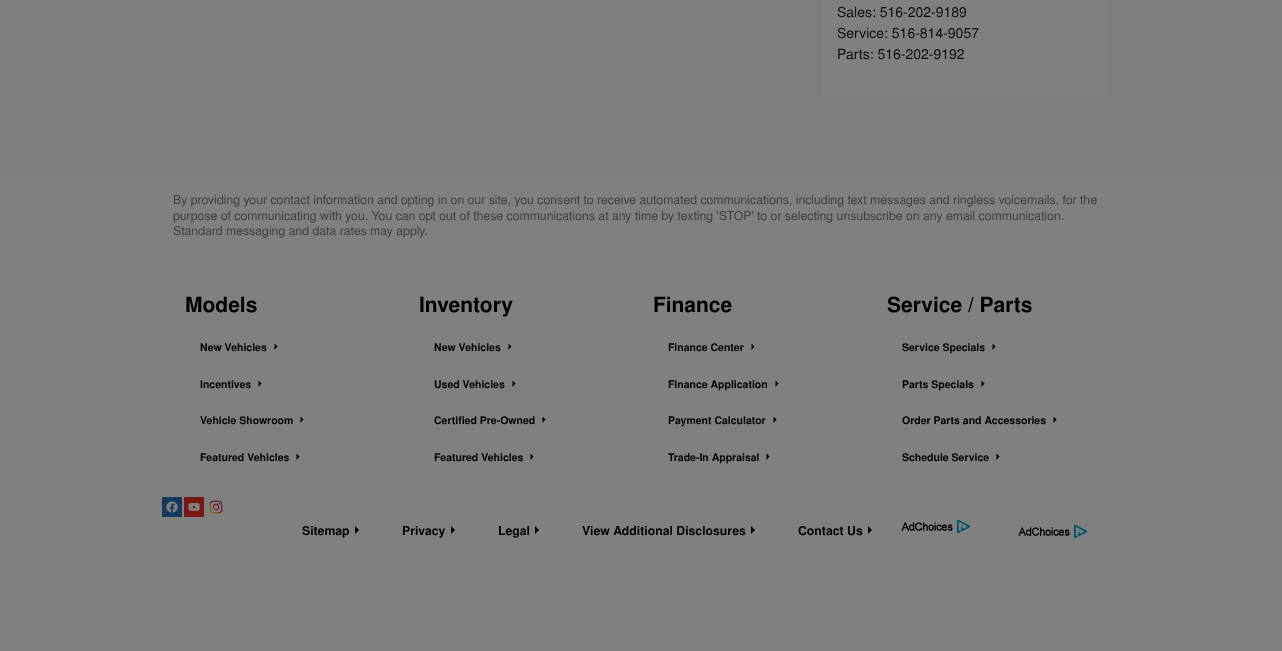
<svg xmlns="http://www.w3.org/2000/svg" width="1282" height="651">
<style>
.a{font:14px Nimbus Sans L;fill:#0d0d0d}
.b{font:12.25px Nimbus Sans L;fill:#404040}
.c{font:bold 21px Nimbus Sans L;fill:#000}
.d{font:bold 10.5px Nimbus Sans L;fill:#000}
.e{font:bold 12.25px Nimbus Sans L;fill:#000}
</style>
<rect width="100%" height="100%" fill="#7d7d7d"/>
<path fill="#808080" d="M821 0h288v97H821z"/>
<path fill="#808080" d="M0 177h1282v474H0z"/>
<path fill="#000" d="M274.5 343.5v6.5l3-3.5z"/>
<path fill="#000" d="M258.5 380.5v6.5l3-3.5z"/>
<path fill="#000" d="M300.5 416.5v6.5l3-3.5z"/>
<path fill="#000" d="M296.5 453.5v6.5l3-3.5z"/>
<path fill="#000" d="M508.5 343.5v6.5l3-3.5z"/>
<path fill="#000" d="M512.5 380.5v6.5l3-3.5z"/>
<path fill="#000" d="M542.5 416.5v6.5l3-3.5z"/>
<path fill="#000" d="M530.5 453.5v6.5l3-3.5z"/>
<path fill="#000" d="M751.5 343.5v6.5l3-3.5z"/>
<path fill="#000" d="M775.5 380.5v6.5l3-3.5z"/>
<path fill="#000" d="M773.5 416.5v6.5l3-3.5z"/>
<path fill="#000" d="M766.5 453.5v6.5l3-3.5z"/>
<path fill="#000" d="M992.5 343.5v6.5l3-3.5z"/>
<path fill="#000" d="M981.5 380.5v6.5l3-3.5z"/>
<path fill="#000" d="M1053.5 416.5v6.5l3-3.5z"/>
<path fill="#000" d="M996.5 453.5v6.5l3-3.5z"/>
<image href="1.png" x="162" y="497" width="20" height="20"/>
<image href="2.png" x="184" y="497" width="20" height="20"/>
<image href="3.png" x="209" y="500" width="14" height="14"/>
<path fill="#000" d="M355 526v8l4-4z"/>
<path fill="#000" d="M451 526v8l4-4z"/>
<path fill="#000" d="M535 526v8l4-4z"/>
<path fill="#000" d="M751 526v8l4-4z"/>
<path fill="#000" d="M868 526v8l4-4z"/>
<image href="4.png" x="901" y="520" width="69" height="13"/>
<image href="4.png" x="1018" y="525" width="69" height="13"/>
<text class="a" x="837" y="17">Sales: 516-202-9189</text>
<text class="a" x="837" y="38">Service: 516-814-9057</text>
<text class="a" x="837" y="59">Parts: 516-202-9192</text>
<text class="b" x="173" y="204">By providing your contact information and opting in on our site, you consent to receive automated communications, including text messages and ringless voicemails, for the</text>
<text class="b" x="173" y="220">purpose of communicating with you. You can opt out of these communications at any time by texting 'STOP' to or selecting unsubscribe on any email communication.</text>
<text class="b" x="173" y="235">Standard messaging and data rates may apply.</text>
<text class="c" x="185" y="312">Models</text>
<text class="d" x="200" y="351">New Vehicles</text>
<text class="d" x="200" y="388">Incentives</text>
<text class="d" x="200" y="424">Vehicle Showroom</text>
<text class="d" x="200" y="461">Featured Vehicles</text>
<text class="c" x="419" y="312">Inventory</text>
<text class="d" x="434" y="351">New Vehicles</text>
<text class="d" x="434" y="388">Used Vehicles</text>
<text class="d" x="434" y="424">Certified Pre-Owned</text>
<text class="d" x="434" y="461">Featured Vehicles</text>
<text class="c" x="653" y="312">Finance</text>
<text class="d" x="668" y="351">Finance Center</text>
<text class="d" x="668" y="388">Finance Application</text>
<text class="d" x="668" y="424">Payment Calculator</text>
<text class="d" x="668" y="461">Trade-In Appraisal</text>
<text class="c" x="887" y="312">Service / Parts</text>
<text class="d" x="902" y="351">Service Specials</text>
<text class="d" x="902" y="388">Parts Specials</text>
<text class="d" x="902" y="424">Order Parts and Accessories</text>
<text class="d" x="902" y="461">Schedule Service</text>
<text class="e" x="302" y="535">Sitemap</text>
<text class="e" x="402" y="535">Privacy</text>
<text class="e" x="498" y="535">Legal</text>
<text class="e" x="582" y="535">View Additional Disclosures</text>
<text class="e" x="798" y="535">Contact Us</text>
</svg>
